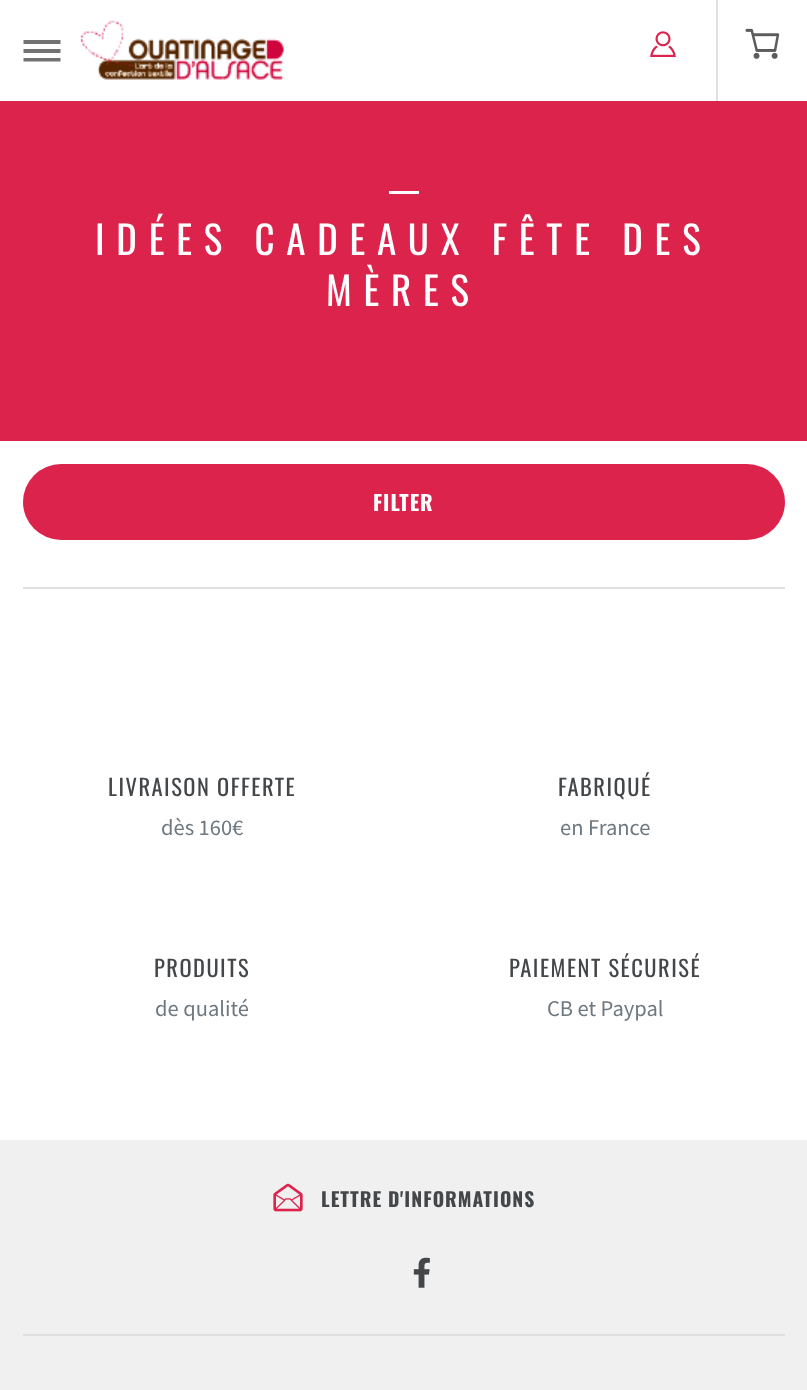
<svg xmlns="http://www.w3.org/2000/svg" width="807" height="1390">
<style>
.a{font:39px Oswald;letter-spacing:11.7px;fill:#fff}
.b{font:bold 21px Oswald;letter-spacing:1px;fill:#fff}
.c{font:22.5px Oswald;letter-spacing:1.5px;fill:#44474a}
.d{font:22.5px Source Sans Pro;fill:#6e7880}
.e{font:bold 19.5px Oswald;letter-spacing:1px;fill:#44474a}
</style>
<rect width="100%" height="100%" fill="#fff"/>
<path fill="#727272" d="M23.5 40h37v4h-37zm0 9h37v4h-37zm0 9h37v3.5h-37z"/>
<image href="1.png" x="80" y="20" width="204" height="60"/>
<image href="2.png" x="650" y="31" width="26" height="26"/>
<path fill="#dee1de" d="M716 0h2v101H716z"/>
<image href="3.png" x="745" y="28" width="35" height="31"/>
<path fill="#db234c" d="M0 101h807v340H0z"/>
<path fill="#fff" d="M389 191h30v3H389z"/>
<path fill="#dee1de" d="M23 587h762v2H23z"/>
<rect fill="#db234c" x="23" y="464" width="762" height="76" rx="38"/>
<path fill="#f0f0f0" d="M0 1140h807v250H0z"/>
<path fill="#dee1de" d="M23 1334h762v2H23z"/>
<image href="4.png" x="273" y="1183" width="30" height="29"/>
<image href="5.png" x="413" y="1257" width="17" height="31"/>
<text class="a" x="95" y="255">IDÉES CADEAUX FÊTE DES</text>
<text class="a" x="326" y="306">MÈRES</text>
<text class="b" x="373" y="511">FILTER</text>
<text class="c" x="108" y="796">LIVRAISON OFFERTE</text>
<text class="d" x="161" y="835">dès 160€</text>
<text class="c" x="558" y="796">FABRIQUÉ</text>
<text class="d" x="560" y="835">en France</text>
<text class="c" x="154" y="977">PRODUITS</text>
<text class="d" x="155" y="1016">de qualité</text>
<text class="c" x="509" y="977">PAIEMENT SÉCURISÉ</text>
<text class="d" x="547" y="1016">CB et Paypal</text>
<text class="e" x="321" y="1207">LETTRE D'INFORMATIONS</text>
</svg>
